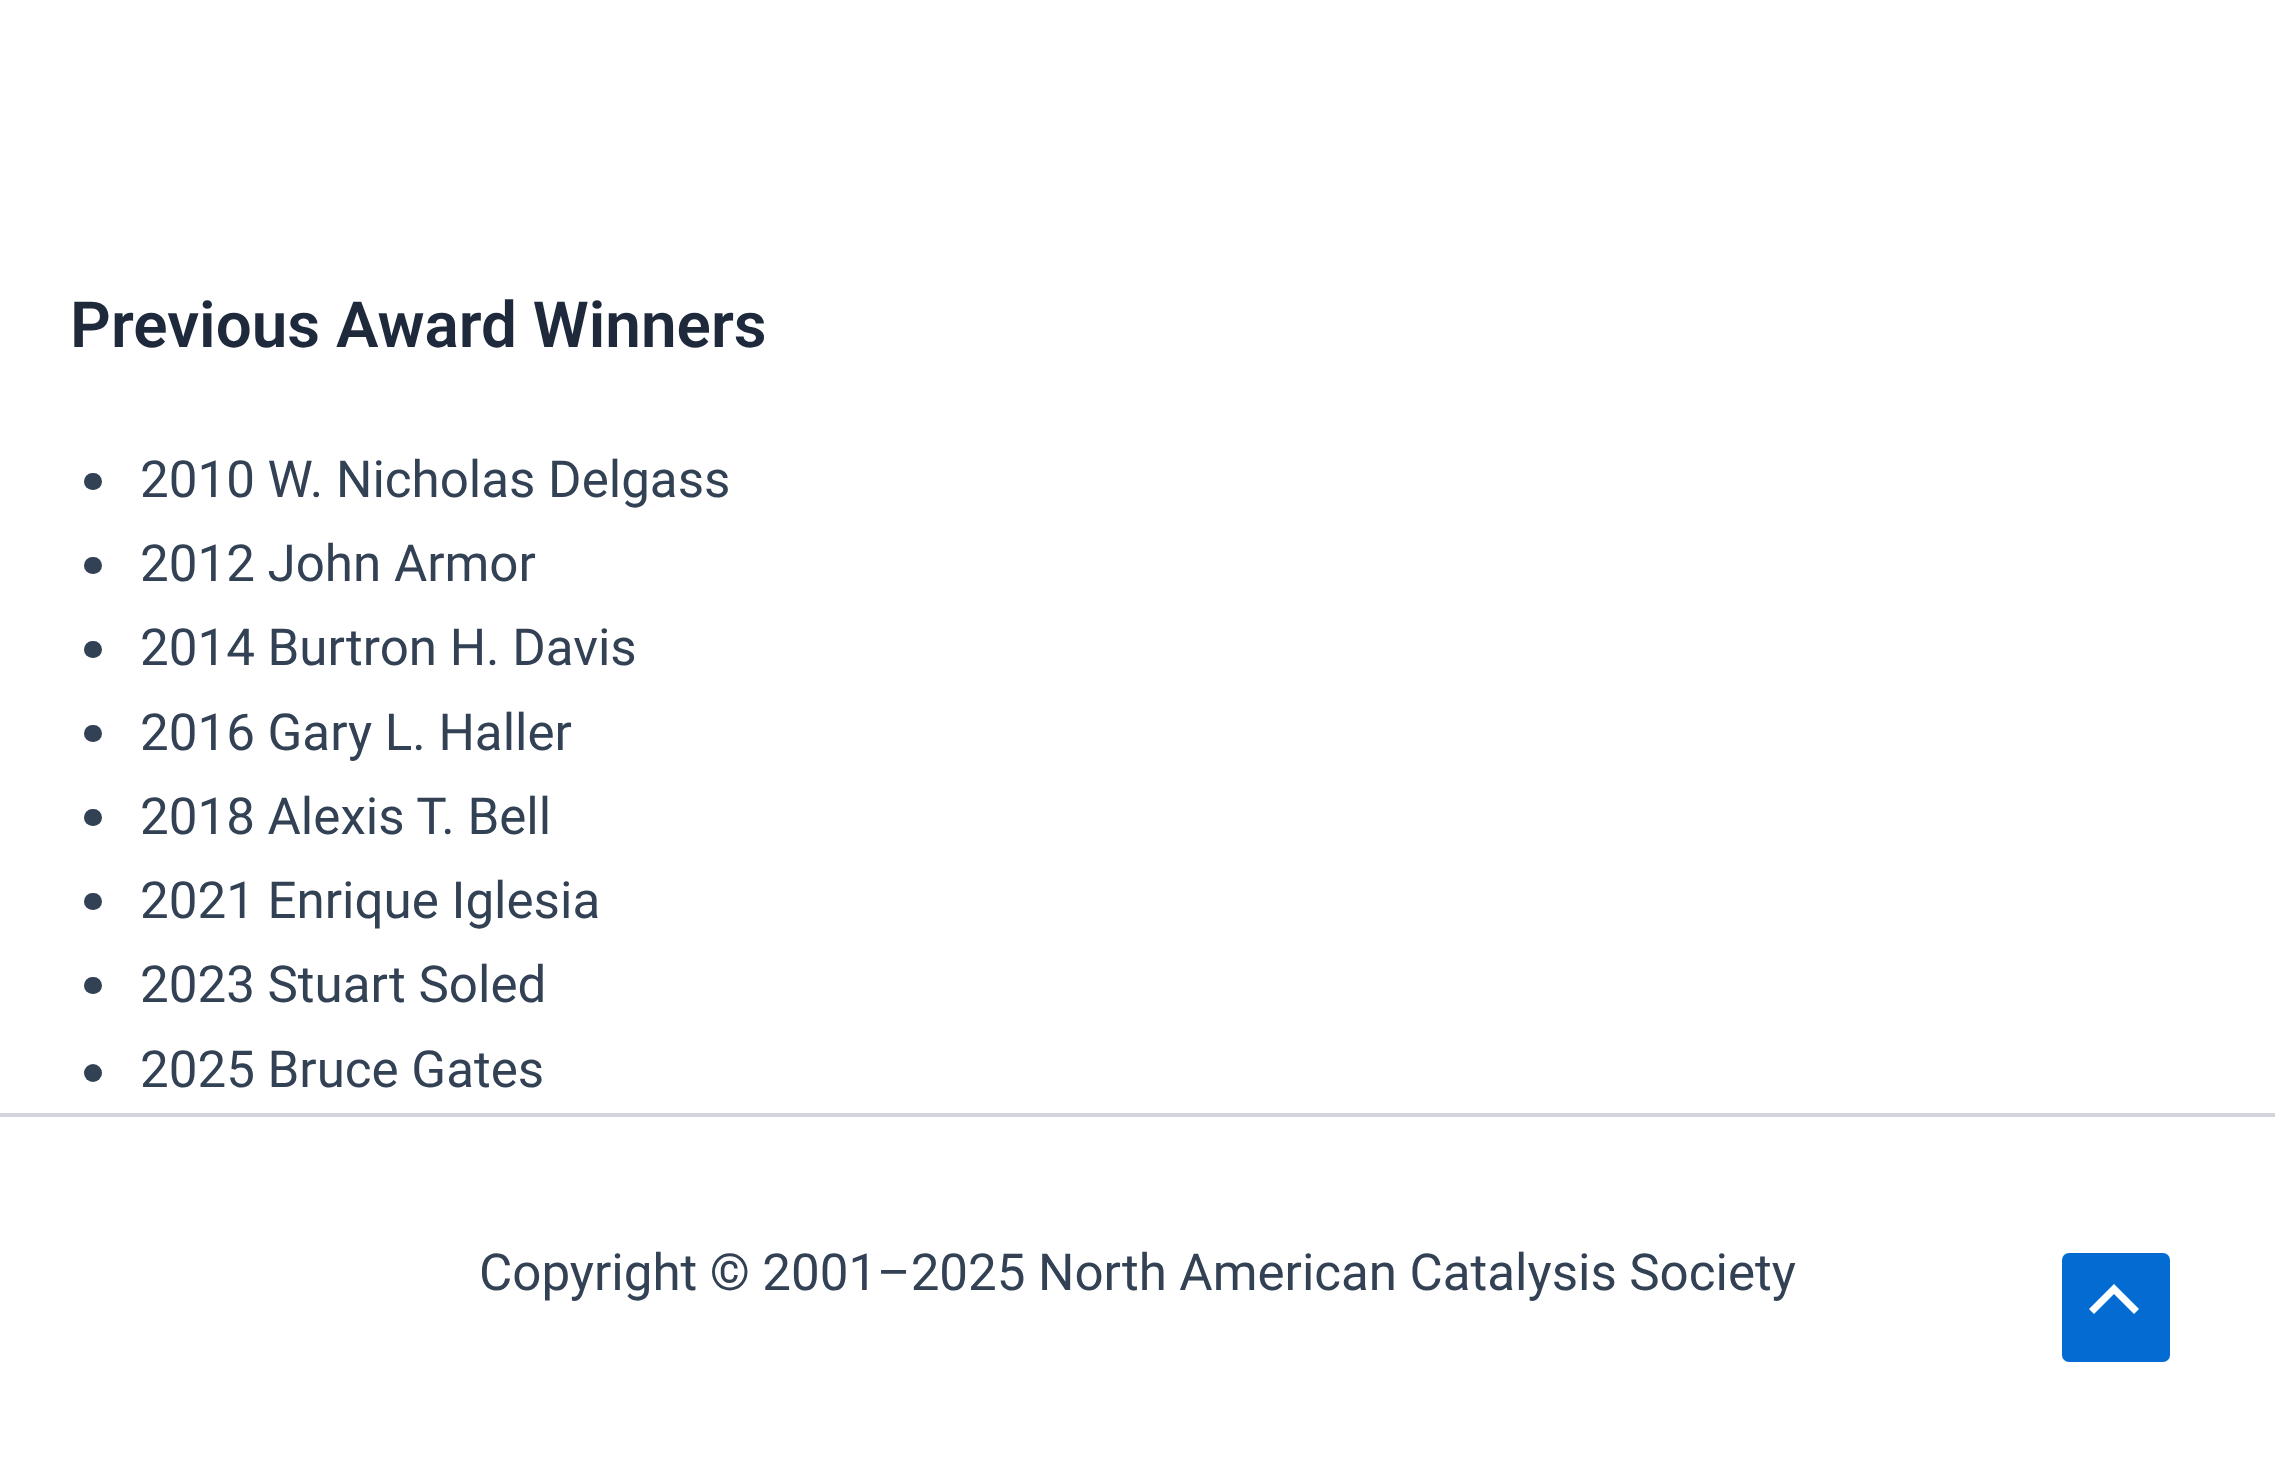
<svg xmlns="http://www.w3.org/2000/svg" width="2275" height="1465">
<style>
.a{font:600 63.75px Roboto;fill:#1e293b}
.b{font:51.1px Roboto;fill:#334155}
</style>
<rect width="100%" height="100%" fill="#fff"/>
<rect fill="#334155" x="84" y="473" width="18" height="17" rx="8.5"/>
<rect fill="#334155" x="84" y="557" width="18" height="17" rx="8.5"/>
<rect fill="#334155" x="84" y="641" width="18" height="17" rx="8.5"/>
<rect fill="#334155" x="84" y="725" width="18" height="17" rx="8.5"/>
<rect fill="#334155" x="84" y="809" width="18" height="17" rx="8.5"/>
<rect fill="#334155" x="84" y="893" width="18" height="17" rx="8.5"/>
<rect fill="#334155" x="84" y="977" width="18" height="17" rx="8.5"/>
<circle fill="#334155" cx="93" cy="1073" r="9"/>
<path fill="#d1d5db" d="M0 1113h2275v4H0z"/>
<rect fill="#046bd2" x="2062" y="1253" width="108" height="109" rx="7"/>
<path fill="#fff" d="M2139 1309l-25-25l-25 25l5 5l20-20l20 20z"/>
<text class="a" x="70" y="347">Previous Award Winners</text>
<text class="b" x="140" y="497">2010 W. Nicholas Delgass</text>
<text class="b" x="140" y="581">2012 John Armor</text>
<text class="b" x="140" y="665">2014 Burtron H. Davis</text>
<text class="b" x="140" y="750">2016 Gary L. Haller</text>
<text class="b" x="140" y="834">2018 Alexis T. Bell</text>
<text class="b" x="140" y="918">2021 Enrique Iglesia</text>
<text class="b" x="140" y="1002">2023 Stuart Soled</text>
<text class="b" x="140" y="1087">2025 Bruce Gates</text>
<text class="b" x="479" y="1290" word-spacing="-0.25">Copyright © 2001–2025 North American Catalysis Society</text>
</svg>
